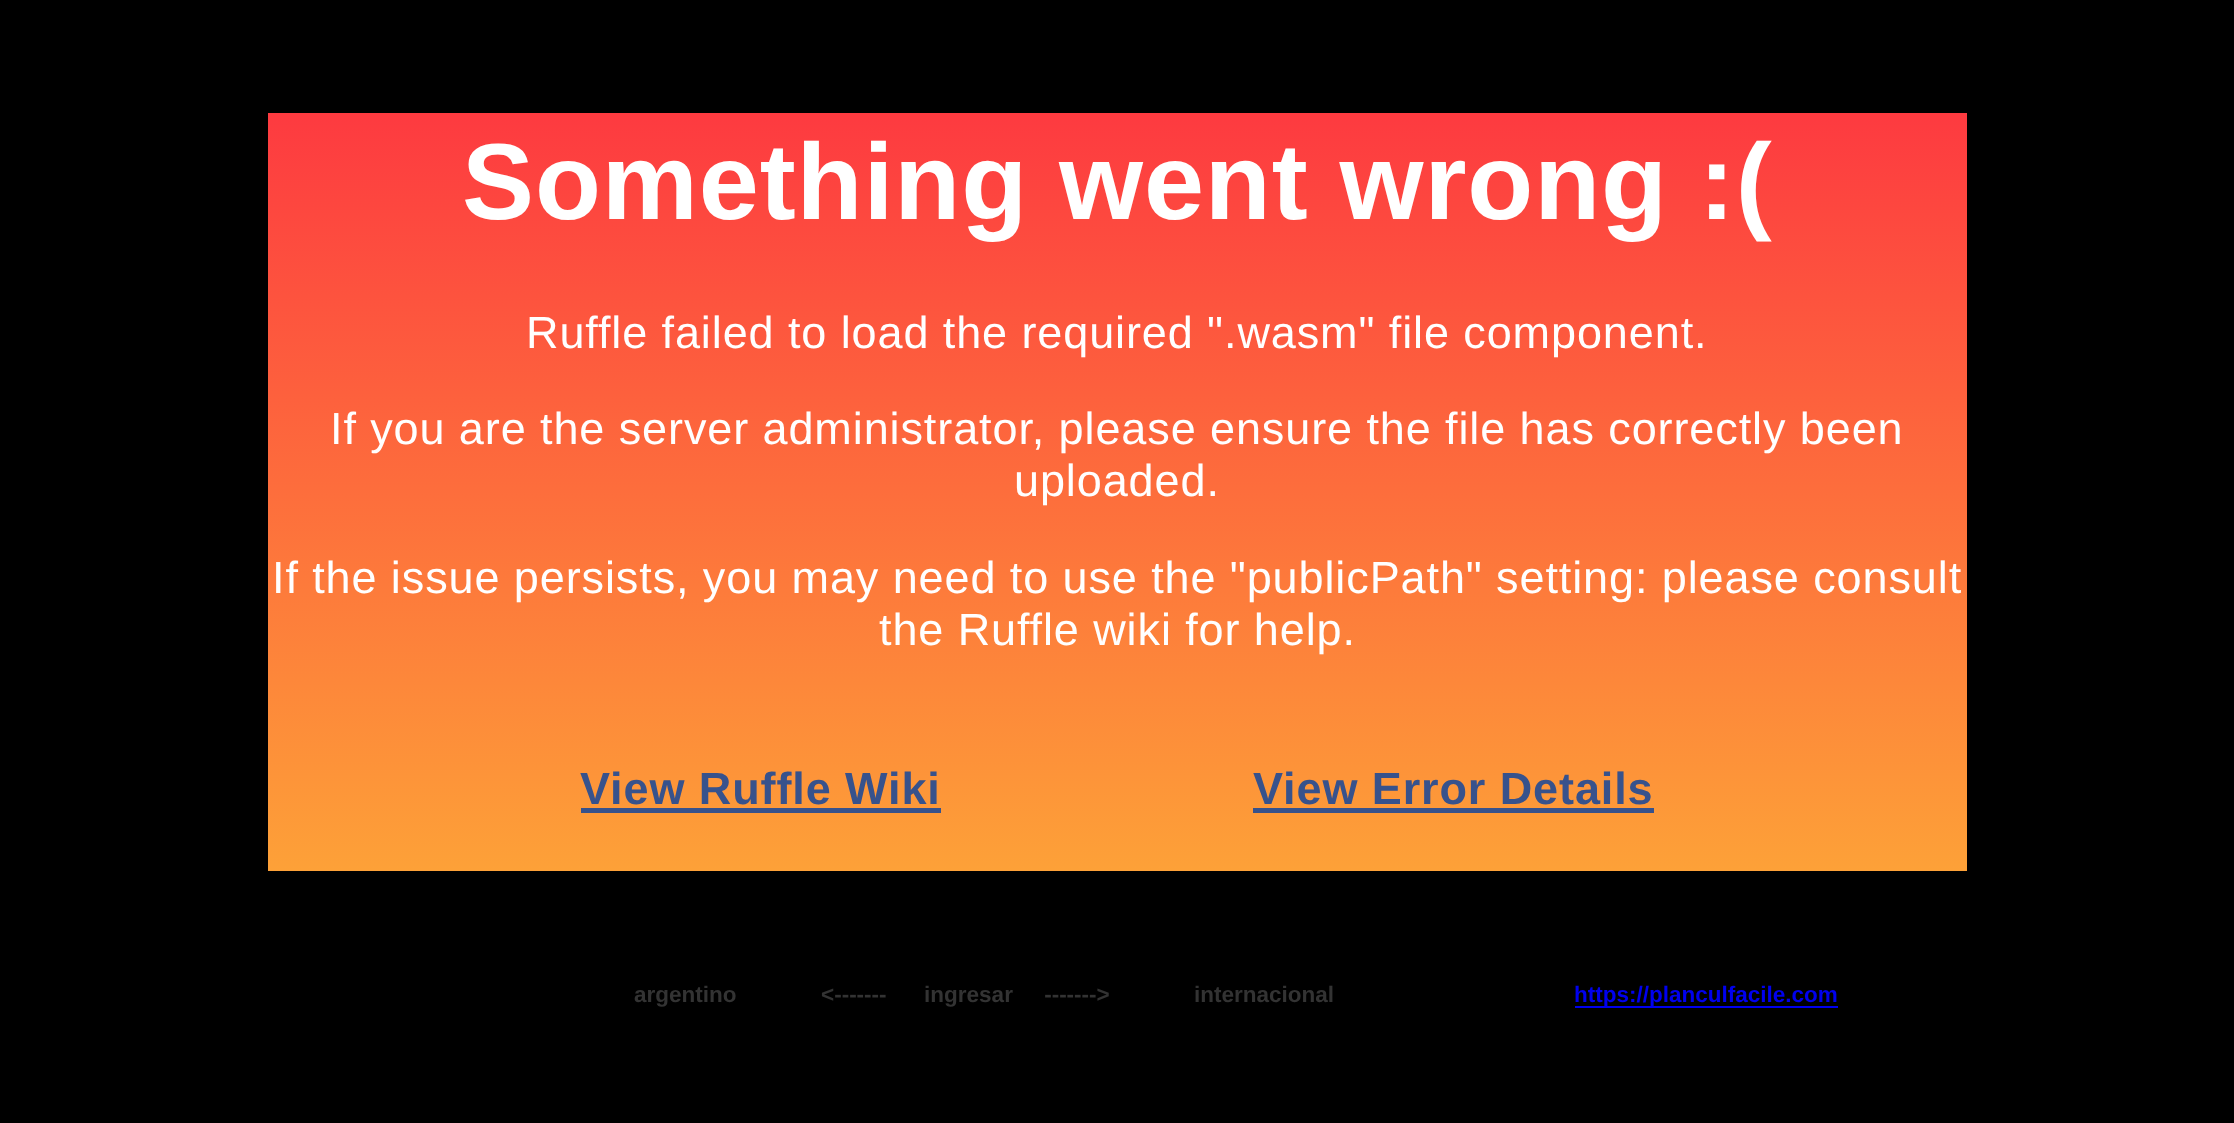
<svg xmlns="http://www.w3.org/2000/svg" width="2234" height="1123">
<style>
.a{font:bold 108px Liberation Sans;letter-spacing:0.9px;fill:#fff}
.b{font:45px Liberation Sans;letter-spacing:0.9px;fill:#fff}
.c{font:bold 45px Liberation Sans;letter-spacing:0.9px;fill:#37528c}
.d{font:bold 22.5px Liberation Sans;fill:#333}
.e{font:bold 22.5px Liberation Sans;fill:#00e}
</style>
<defs>
<linearGradient id="g1" gradientUnits="userSpaceOnUse" x1="1117" y1="112" x2="1117" y2="871"><stop offset="0" stop-color="#fd3a40"/><stop offset="1" stop-color="#fda138"/></linearGradient>
</defs>
<rect width="100%" height="100%" fill="#000"/>
<path fill="url(#g1)" d="M268 113h1699v758H268z"/>
<path fill="#37528c" d="M581 808h360v5H581z"/>
<path fill="#37528c" d="M1253 808h401v5H1253z"/>
<path fill="#00e" d="M1575 1006h263v2H1575z"/>
<text class="a" x="462" y="219">Something went wrong :(</text>
<text class="b" x="526" y="348">Ruffle failed to load the required ".wasm" file component.</text>
<text class="b" x="330" y="444">If you are the server administrator, please ensure the file has correctly been</text>
<text class="b" x="1014" y="496">uploaded.</text>
<text class="b" x="272" y="593">If the issue persists, you may need to use the "publicPath" setting: please consult</text>
<text class="b" x="879" y="645">the Ruffle wiki for help.</text>
<text class="c" x="580" y="804">View Ruffle Wiki</text>
<text class="c" x="1253" y="804">View Error Details</text>
<text class="d" x="634" y="1002">argentino</text>
<text class="d" xml:space="preserve" x="821" y="1002">&lt;-------      ingresar     -------&gt;</text>
<text class="d" x="1194" y="1002">internacional</text>
<text class="e" x="1574" y="1002">https://planculfacile.com</text>
</svg>
